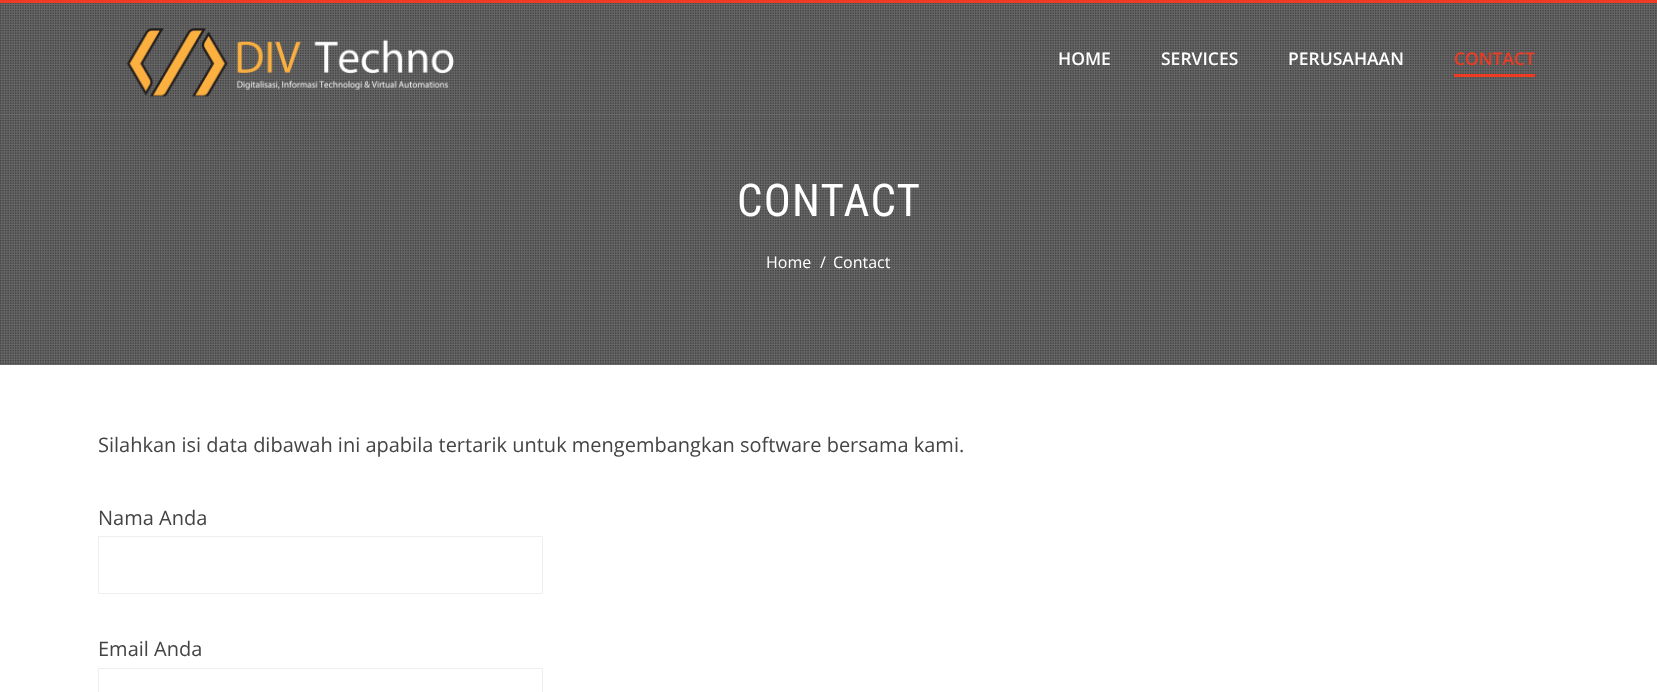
<svg xmlns="http://www.w3.org/2000/svg" width="1657" height="692">
<style>
.a{font:600 17.5px Open Sans;fill:#fff}
.b{font:600 17.5px Open Sans;fill:#ee3b24}
.c{font:45px Roboto Condensed;letter-spacing:1.25px;fill:#fff}
.d{font:16px Open Sans;fill:#fff}
.e{font:20px Open Sans;fill:#444}
</style>
<rect width="100%" height="100%" fill="#fff"/>
<path fill="#ee3b24" d="M0 0h1657v3H0z"/>
<image href="2.png" x="0" y="3" width="1657" height="362"/>
<path fill="#6d6d6d" d="M0 114h1657v1H0z"/>
<image href="1.png" x="126" y="28" width="328" height="69"/>
<path fill="#ee3b24" d="M1454 74h81v3H1454z"/>
<path fill="none" stroke="#eee" d="M98.5 536.5h444v57H98.5z"/>
<path fill="none" stroke="#eee" d="M98.5 668.5h444v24H98.5z"/>
<text class="a" x="1058" y="65">HOME</text>
<text class="a" x="1161" y="65">SERVICES</text>
<text class="a" x="1288" y="65">PERUSAHAAN</text>
<text class="b" x="1454" y="65">CONTACT</text>
<text class="c" x="737" y="216">CONTACT</text>
<text class="d" x="766" y="268">Home</text>
<text class="d" x="820" y="268">/</text>
<text class="d" x="833" y="268">Contact</text>
<text class="e" x="98" y="452">Silahkan isi data dibawah ini apabila tertarik untuk mengembangkan software bersama kami.</text>
<text class="e" x="98" y="525">Nama Anda</text>
<text class="e" x="98" y="656">Email Anda</text>
</svg>
